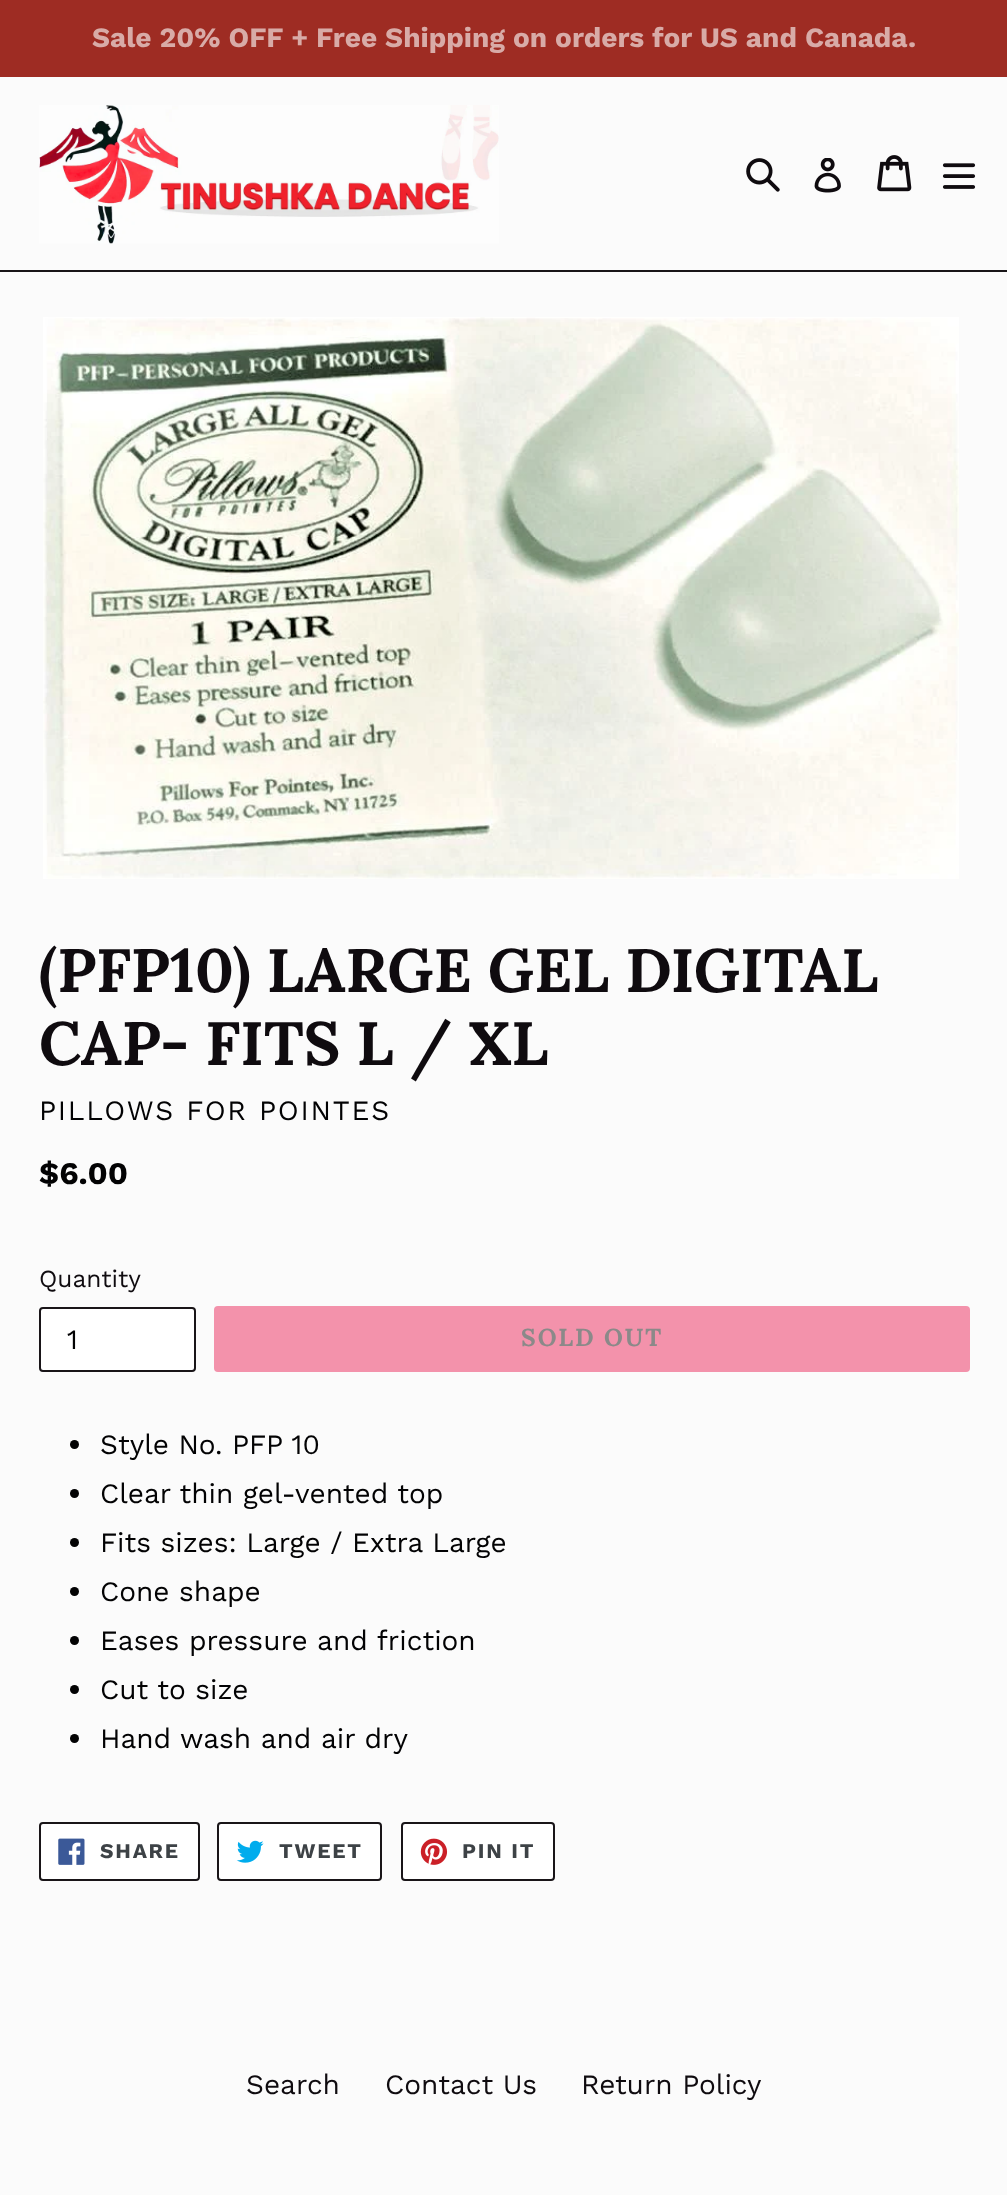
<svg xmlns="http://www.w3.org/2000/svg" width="1007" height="2195">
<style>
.a{font:bold 28px Work Sans;fill:#d8aba7}
.b{font:bold 61.25px Lora;fill:#0f0b0f}
.c{font:28px Work Sans;letter-spacing:1.75px;fill:#020203}
.d{font:bold 31.5px Work Sans;fill:#020203}
.e{font:24.5px Work Sans;fill:#0f0b0f}
.f{font:28px Work Sans;fill:#020203}
.g{font:bold 24.5px Lora;letter-spacing:2px;fill:#8b8989}
.h{font:bold 21px Work Sans;letter-spacing:1.75px;fill:#3d4246}
.i{font:28px Work Sans;fill:#0f0b0f}
</style>
<rect width="100%" height="100%" fill="#fbfbfb"/>
<path fill="#9e2c23" d="M0 0h1007v77H0z"/>
<path fill="#191518" d="M0 270h1007v2H0z"/>
<image href="1.png" x="39" y="105" width="460" height="139"/>
<image href="2.png" x="746" y="158" width="34" height="34"/>
<image href="3.png" x="814" y="158" width="27" height="35"/>
<image href="4.png" x="877" y="155" width="35" height="37"/>
<image href="5.png" x="942" y="163" width="34" height="26"/>
<image href="6.png" x="43" y="317" width="916" height="562"/>
<rect fill="#fff" stroke="#191518" stroke-width="2" x="40" y="1308" width="155" height="63" rx="3"/>
<rect fill="#f392ab" x="214" y="1306" width="756" height="66" rx="4"/>
<circle fill="#020203" cx="74.5" cy="1444.5" r="4.5"/>
<circle fill="#020203" cx="74.5" cy="1493.5" r="4.5"/>
<circle fill="#020203" cx="74.5" cy="1542.5" r="4.5"/>
<circle fill="#020203" cx="74.5" cy="1591.5" r="4.5"/>
<circle fill="#020203" cx="74.5" cy="1640.5" r="4.5"/>
<circle fill="#020203" cx="74.5" cy="1689.5" r="4.5"/>
<circle fill="#020203" cx="74.5" cy="1738.5" r="4.5"/>
<rect fill="#fff" stroke="#191518" stroke-width="2" x="40" y="1823" width="159" height="57" rx="3"/>
<image href="7.png" x="58" y="1838" width="27" height="27"/>
<rect fill="#fff" stroke="#191518" stroke-width="2" x="218" y="1823" width="163" height="57" rx="3"/>
<image href="8.png" x="236" y="1840" width="28" height="23"/>
<rect fill="#fff" stroke="#191518" stroke-width="2" x="402" y="1823" width="152" height="57" rx="3"/>
<image href="9.png" x="420" y="1838" width="28" height="27"/>
<text class="a" x="92" y="47">Sale 20% OFF + Free Shipping on orders for US and Canada.</text>
<text class="b" x="39" y="992">(PFP10) LARGE GEL DIGITAL</text>
<text class="b" x="39" y="1065">CAP- FITS L / XL</text>
<text class="c" x="39" y="1120">PILLOWS FOR POINTES</text>
<text class="d" x="39" y="1184">$6.00</text>
<text class="e" x="39" y="1287">Quantity</text>
<text class="f" x="67" y="1349">1</text>
<text class="g" x="521" y="1346">SOLD OUT</text>
<text class="f" x="100" y="1454">Style No. PFP 10</text>
<text class="f" x="100" y="1503">Clear thin gel-vented top</text>
<text class="f" x="100" y="1552">Fits sizes: Large / Extra Large</text>
<text class="f" x="100" y="1601">Cone shape</text>
<text class="f" x="100" y="1650">Eases pressure and friction</text>
<text class="f" x="100" y="1699">Cut to size</text>
<text class="f" x="100" y="1748">Hand wash and air dry</text>
<text class="h" x="100" y="1858">SHARE</text>
<text class="h" x="279" y="1858">TWEET</text>
<text class="h" x="462" y="1858">PIN IT</text>
<text class="i" x="246" y="2094">Search</text>
<text class="i" x="385" y="2094">Contact Us</text>
<text class="i" x="581" y="2094">Return Policy</text>
</svg>
